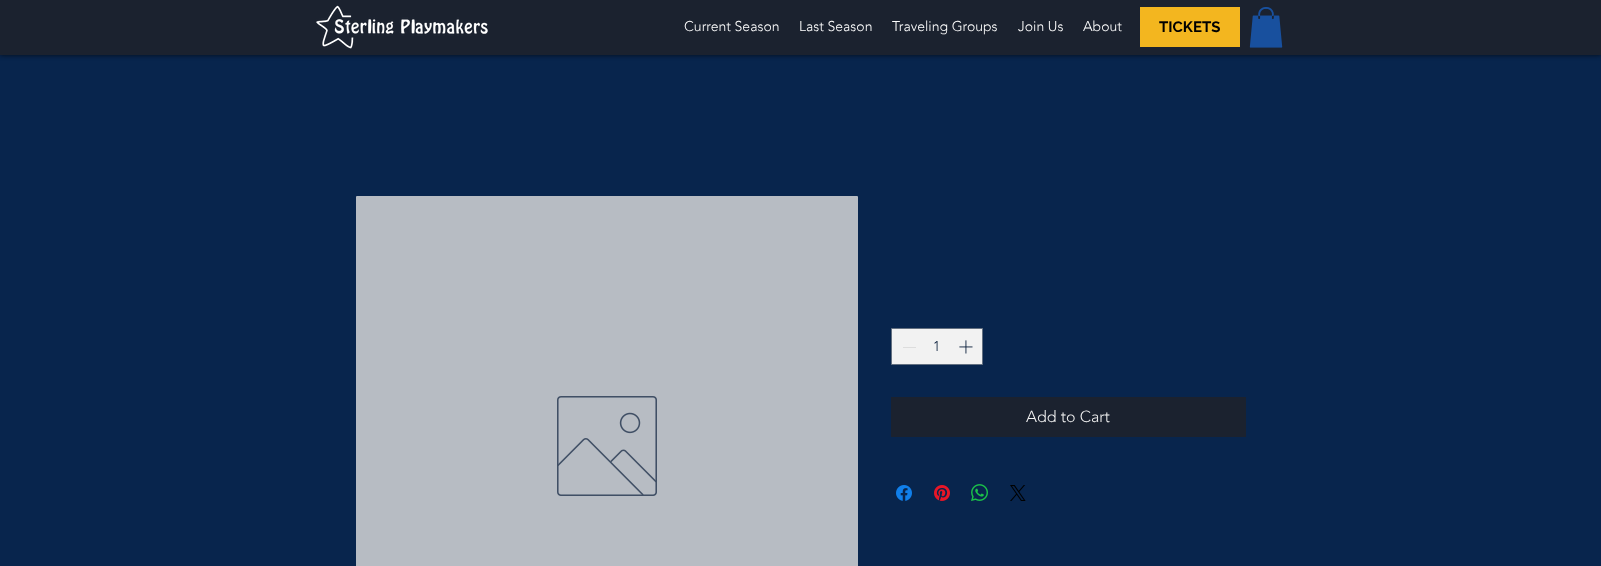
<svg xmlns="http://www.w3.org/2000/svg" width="1601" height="566">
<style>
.a{font:300 14px 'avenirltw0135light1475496';fill:#fff}
.b{font:bold 15px Raleway;fill:#000}
.c{font:300 14px 'avenirltw0135light1475496';fill:#041936}
.d{font:300 16px 'avenirltw0135light1475496';fill:#f2f2f2}
</style>
<rect width="100%" height="100%" fill="#08254d"/>
<path fill="#000000b3" filter="blur(2.5px)" d="M0 0h1601v55H0z"/>
<path fill="#1b222f" d="M0 0h1601v55H0z"/>
<image href="1.png" x="316" y="5" width="172" height="44"/>
<path fill="#f3b61f" d="M1140 7h100v40H1140z"/>
<image href="2.png" x="1249" y="7" width="34" height="41"/>
<path fill="none" stroke="#b7bcc3" d="M356.5 196.5h501v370H356.5z"/>
<path fill="#b7bcc3" d="M357 197h500v369H357z"/>
<image href="3.png" x="557" y="396" width="100" height="100"/>
<path fill="#f2f2f2" stroke="#637081" d="M891.5 328.5h91v36H891.5z"/>
<path fill="#ddd" d="M903 347h13v1H903z"/>
<image href="4.png" x="959" y="340" width="14" height="14"/>
<path fill="#1b222f" d="M891 397h355v40H891z"/>
<image href="5.png" x="896" y="485" width="16" height="16"/>
<image href="6.png" x="934" y="485" width="16" height="16"/>
<image href="7.png" x="971" y="484" width="17" height="17"/>
<image href="8.png" x="1010" y="485" width="16" height="16"/>
<text class="a" x="684" y="31">Current Season</text>
<text class="a" x="799" y="31">Last Season</text>
<text class="a" x="892" y="31">Traveling Groups</text>
<text class="a" x="1018" y="31">Join Us</text>
<text class="a" x="1083" y="31">About</text>
<text class="b" x="1159" y="32">TICKETS</text>
<text class="c" x="933" y="351">1</text>
<text class="d" x="1026" y="422">Add to Cart</text>
</svg>
